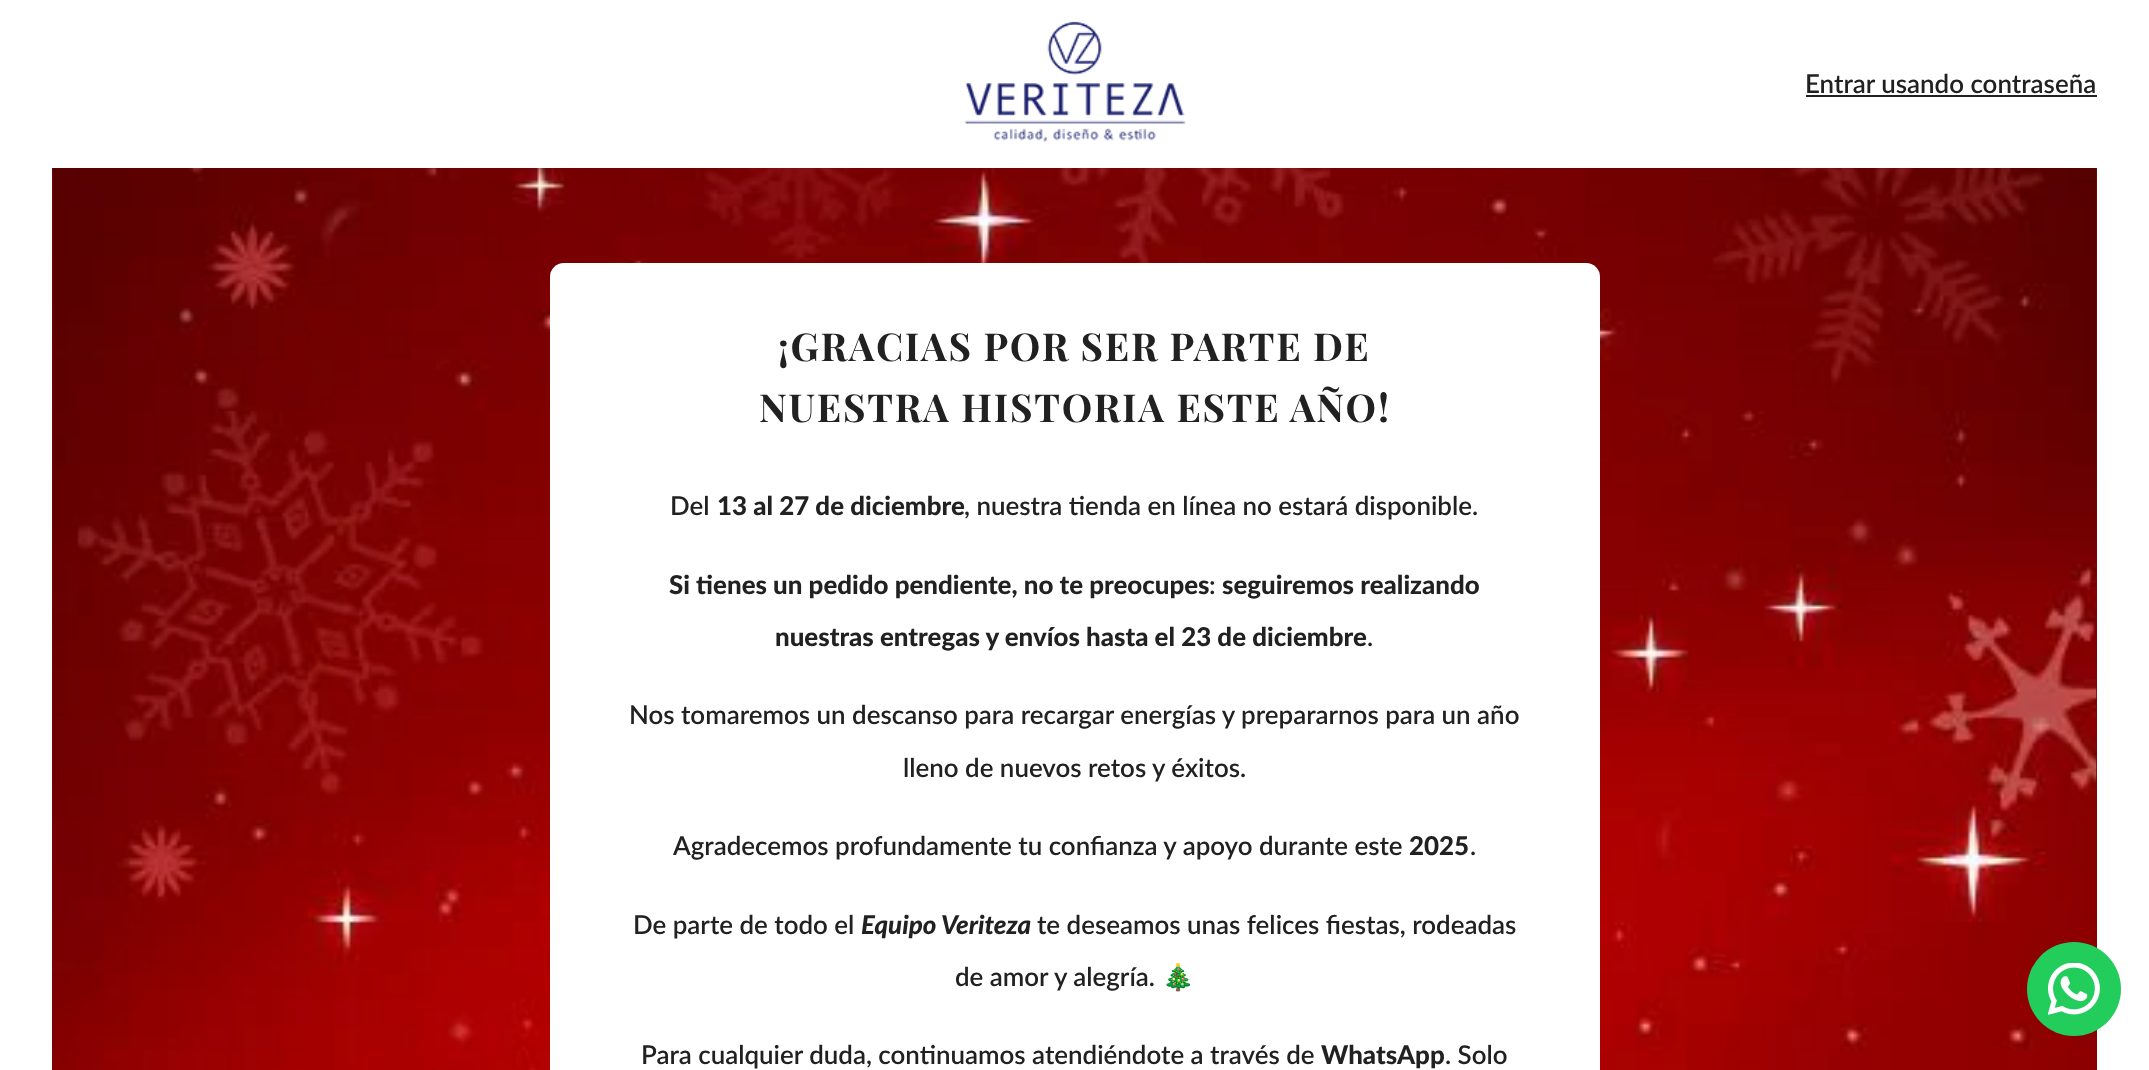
<svg xmlns="http://www.w3.org/2000/svg" width="2149" height="1070">
<style>
.a{font:600 25.9px Lato;fill:#212121}
.b{font:bold 38.5px Playfair Display;letter-spacing:1.75px;fill:#212121}
.c{font:900 25.9px Lato;fill:#212121}
.d{font:italic 900 25.9px Lato;fill:#212121}
.e{font:bold 25.9px Noto Color Emoji;fill:#212121}
</style>
<rect width="100%" height="100%" fill="#fff"/>
<image href="1.png" x="965" y="21" width="221" height="121"/>
<path fill="#212121" d="M1806 95h291v2H1806z"/>
<path fill="#790505" d="M52 168h1v902H52z"/>
<path fill="#7b0505" d="M2096 168h1v902H2096z"/>
<image href="2.png" x="52" y="168" width="2045" height="902"/>
<rect fill="#fff" x="550" y="263" width="1050" height="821" rx="14"/>
<circle fill="#22cd5b" cx="2074" cy="989" r="47"/>
<image href="3.png" x="2048" y="963" width="52" height="52"/>
<text class="a" x="1805" y="93">Entrar usando contraseña</text>
<text class="b" x="778" y="361">¡GRACIAS POR SER PARTE DE</text>
<text class="b" x="759" y="422">NUESTRA HISTORIA ESTE AÑO!</text>
<text class="a" x="670" y="515">Del</text>
<text class="c" x="717" y="515">13 al 27 de diciembre</text>
<text class="a" x="964" y="515">, nuestra tienda en línea no estará disponible.</text>
<text class="c" x="669" y="594">Si tienes un pedido pendiente, no te preocupes</text>
<text class="a" x="1209" y="594">:</text>
<text class="c" x="1222" y="594">seguiremos realizando</text>
<text class="c" x="775" y="646">nuestras entregas y envíos hasta el 23 de diciembre</text>
<text class="a" x="1367" y="646">.</text>
<text class="a" x="629" y="724">Nos tomaremos un descanso para recargar energías y prepararnos para un año</text>
<text class="a" x="903" y="777">lleno de nuevos retos y éxitos.</text>
<text class="a" x="673" y="855">Agradecemos profundamente tu confianza y apoyo durante este</text>
<text class="c" x="1409" y="855">2025</text>
<text class="a" x="1470" y="855">.</text>
<text class="a" x="633" y="934">De parte de todo el</text>
<text class="d" x="861" y="934">Equipo Veriteza</text>
<text class="a" x="1037" y="934">te deseamos unas felices fiestas, rodeadas</text>
<text class="a" x="955" y="986">de amor y alegría.</text>
<text class="e" x="1162" y="986">🎄</text>
<text class="a" x="641" y="1064">Para cualquier duda, continuamos atendiéndote a través de</text>
<text class="c" x="1321" y="1064">WhatsApp</text>
<text class="a" x="1445" y="1064">. Solo</text>
</svg>
